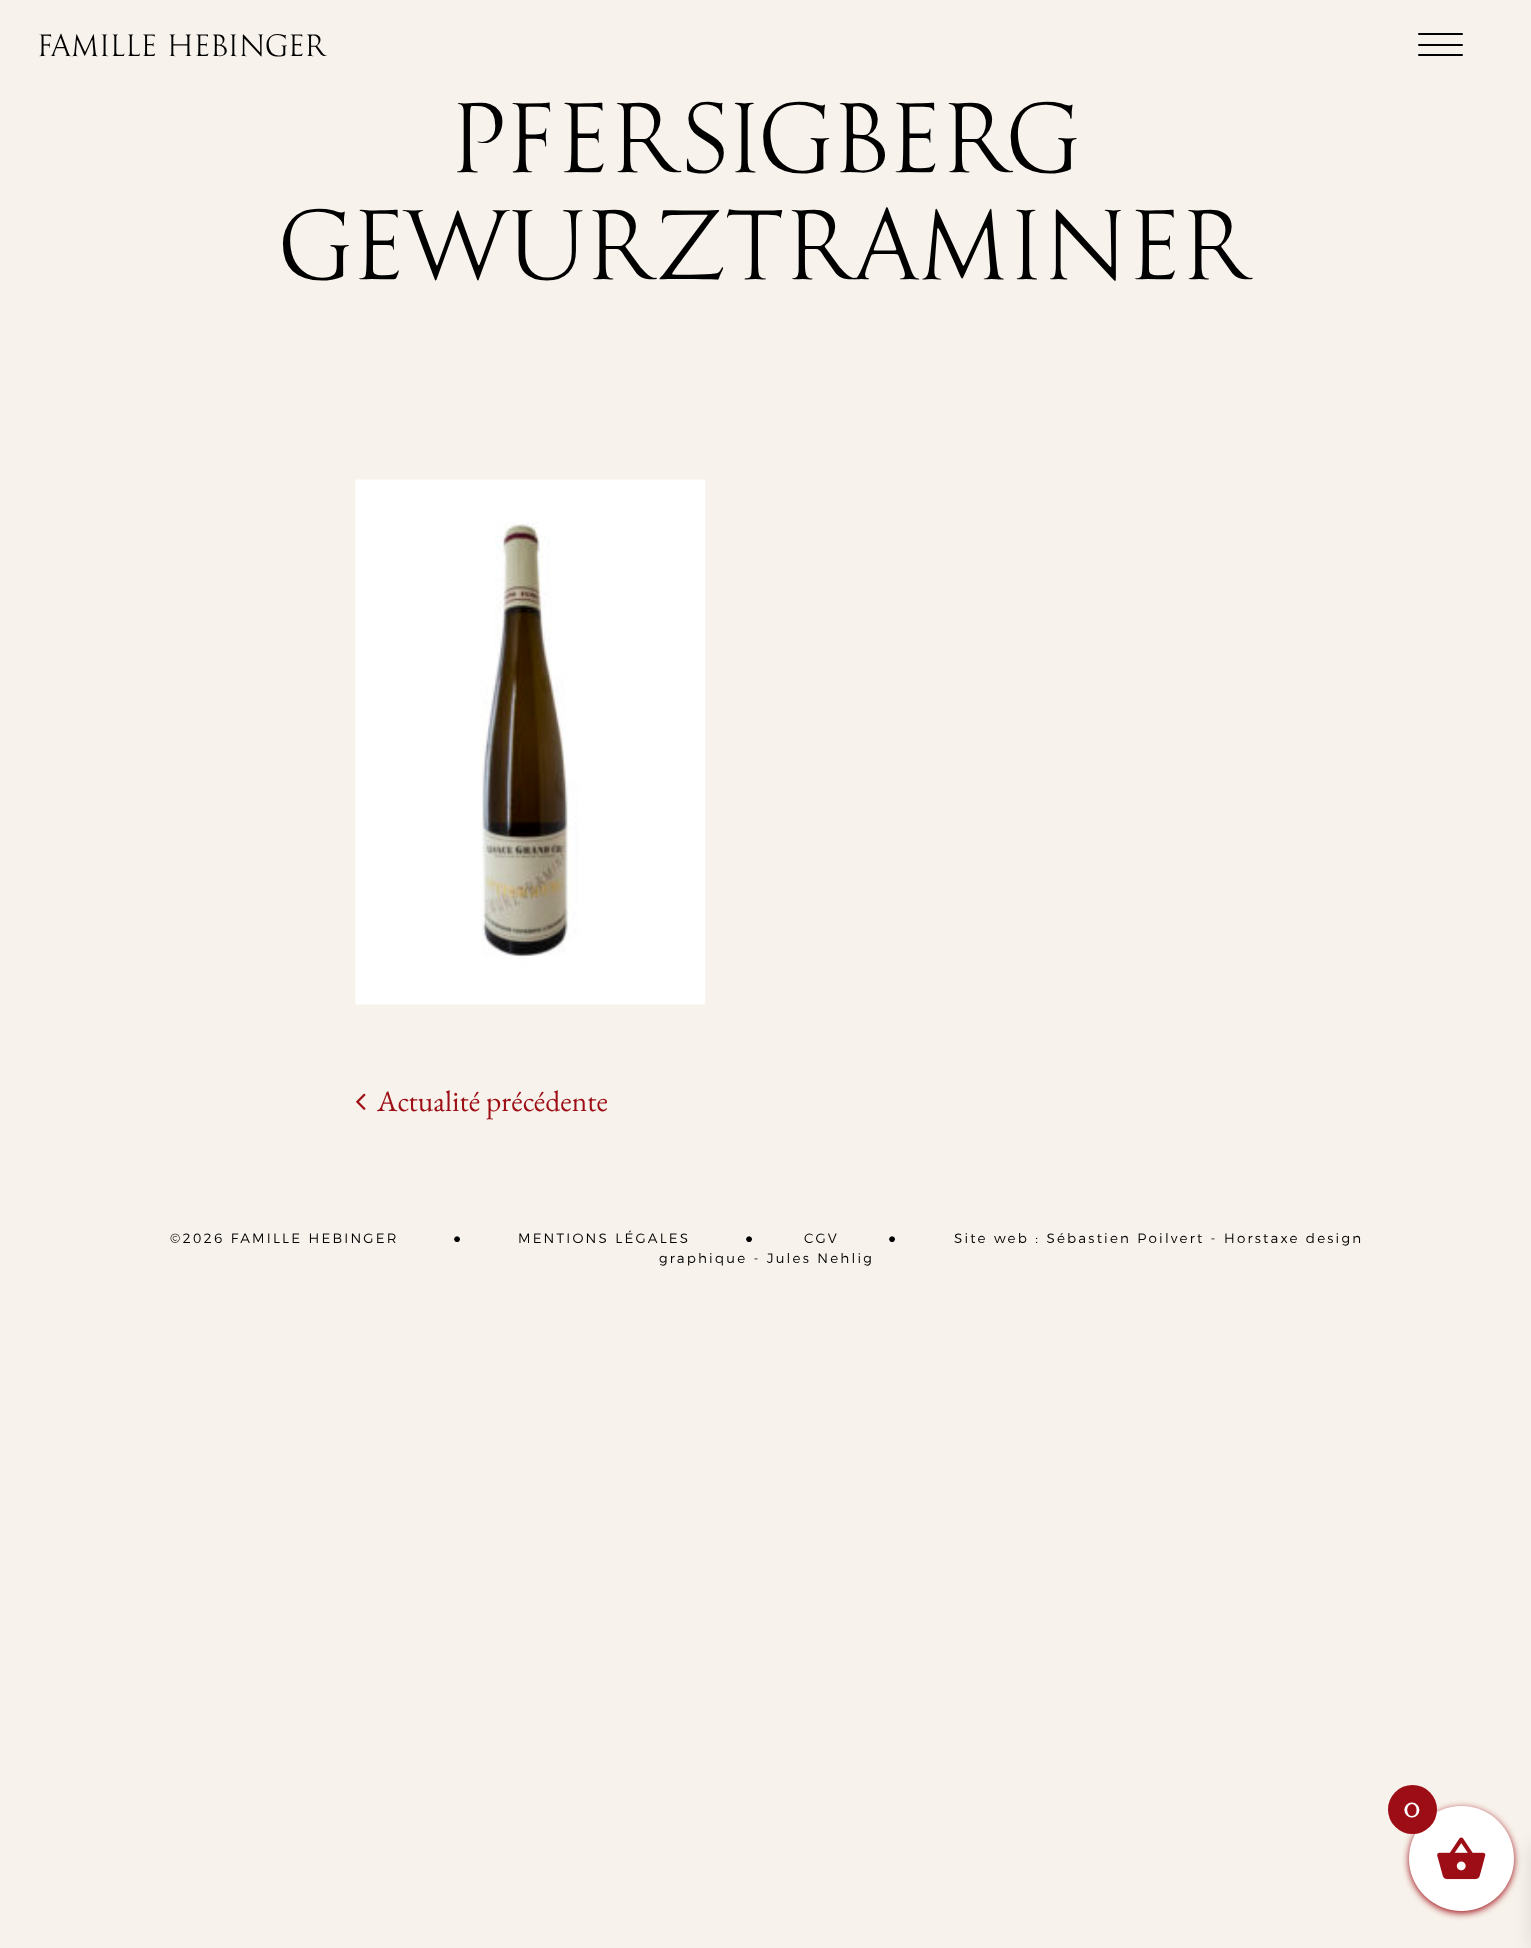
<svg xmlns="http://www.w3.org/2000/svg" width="1531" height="1948">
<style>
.a{font:30.6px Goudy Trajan;fill:#000}
.b{font:98px Goudy Trajan;fill:#000}
.c{font:29.5px EB Garamond;fill:#9d0d15}
.d{font:300 13.5px Montserrat;letter-spacing:2.2px;fill:#000}
.e{font:13.5px Liberation Serif;letter-spacing:2.2px;fill:#000}
.f{font:35px EB Garamond;fill:#fff}
</style>
<rect width="100%" height="100%" fill="#f7f2eb"/>
<rect fill="#000" x="1418" y="33" width="45" height="2" rx="1"/>
<rect fill="#000" x="1418" y="44" width="45" height="2" rx="1"/>
<rect fill="#000" x="1418" y="54" width="45" height="2" rx="1"/>
<image href="1.png" x="355" y="479" width="351" height="526"/>
<image href="2.png" x="356" y="1093" width="10" height="17"/>
<rect fill="#9d0d15" filter="blur(3.5px)" x="1409" y="1808" width="105" height="105" rx="52.5"/>
<path fill="#0000001a" filter="blur(9px)" d="M1531 1846h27v102H1531z"/>
<circle fill="#fff" cx="1461.5" cy="1858.5" r="52.5"/>
<circle fill="#9d0d15" cx="1412.5" cy="1809.5" r="24.5"/>
<image href="3.png" x="1437" y="1837" width="49" height="43"/>
<text class="a" x="37" y="56">FAMILLE HEBINGER</text>
<text class="b" x="449" y="172">Pfersigberg</text>
<text class="b" x="279" y="279">Gewurztraminer</text>
<text class="c" x="377" y="1111">Actualité précédente</text>
<text class="d" x="170" y="1243">©2026 FAMILLE HEBINGER</text>
<text class="e" x="453" y="1243">●</text>
<text class="d" x="518" y="1243">MENTIONS LÉGALES</text>
<text class="e" x="745" y="1243">●</text>
<text class="d" x="804" y="1243">CGV</text>
<text class="e" x="888" y="1243">●</text>
<text class="d" x="954" y="1243">Site web : Sébastien Poilvert - Horstaxe design</text>
<text class="d" x="659" y="1263">graphique - Jules Nehlig</text>
<text class="f" x="1403" y="1817">0</text>
</svg>
